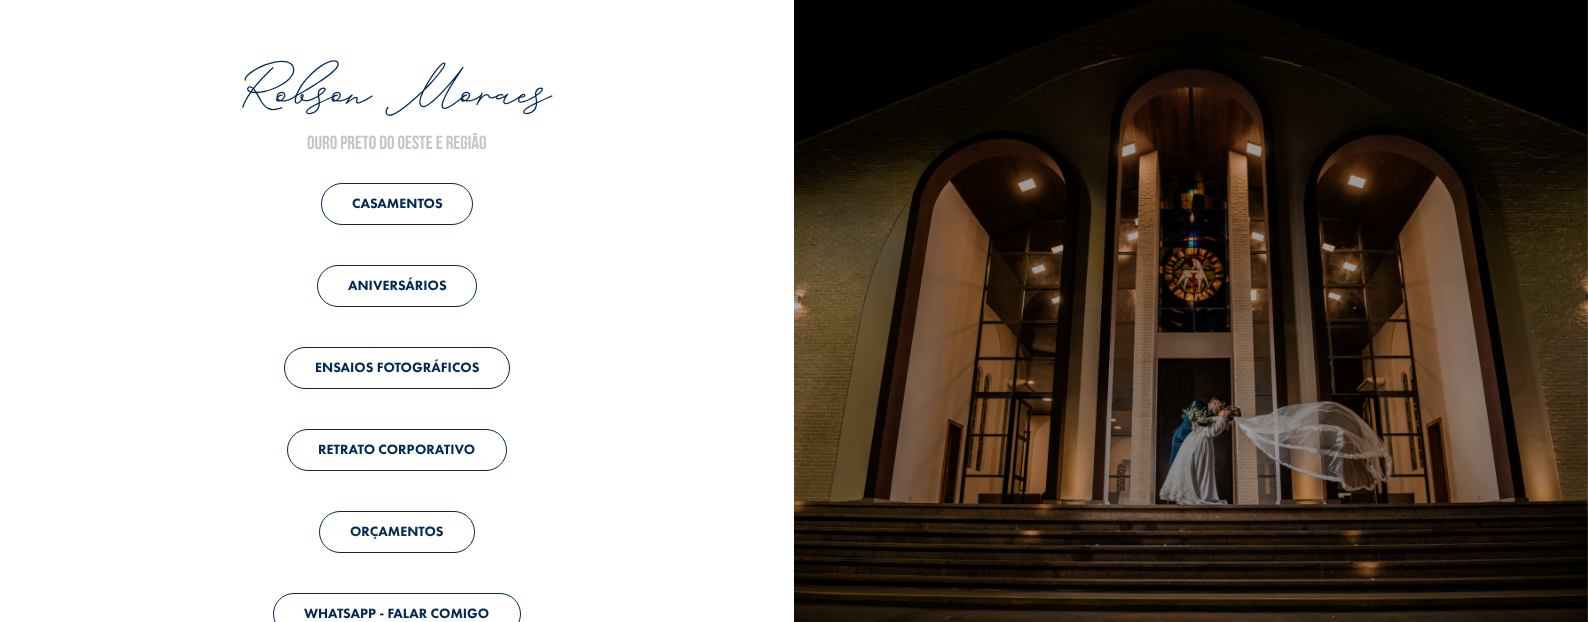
<svg xmlns="http://www.w3.org/2000/svg" width="1588" height="622">
<style>
.a{font:bold 80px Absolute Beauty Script;fill:#022a55}
.b{font:bold 19px Bebas Neue;fill:#c0c6cc}
.c{font:900 14px Futura PT;fill:#022a55}
</style>
<rect width="100%" height="100%" fill="#fff"/>
<rect fill="none" stroke="#022a55" x="321.5" y="183.5" width="151" height="41" rx="20.5"/>
<rect fill="none" stroke="#022a55" x="317.5" y="265.5" width="159" height="41" rx="20.5"/>
<rect fill="none" stroke="#022a55" x="284.5" y="347.5" width="225" height="41" rx="20.5"/>
<rect fill="none" stroke="#022a55" x="287.5" y="429.5" width="219" height="41" rx="20.5"/>
<rect fill="none" stroke="#022a55" x="319.5" y="511.5" width="155" height="41" rx="20.5"/>
<rect fill="none" stroke="#022a55" x="273.5" y="593.5" width="247" height="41" rx="20.5"/>
<image href="1.png" x="794" y="0" width="794" height="622"/>
<text class="a" x="242" y="102">Robson Moraes</text>
<text class="b" x="307" y="149">Ouro preto do oeste e região</text>
<text class="c" x="352" y="208">CASAMENTOS</text>
<text class="c" x="348" y="290">ANIVERSÁRIOS</text>
<text class="c" x="315" y="372">ENSAIOS FOTOGRÁFICOS</text>
<text class="c" x="318" y="454">RETRATO CORPORATIVO</text>
<text class="c" x="350" y="536">ORÇAMENTOS</text>
<text class="c" x="304" y="618">WHATSAPP - FALAR COMIGO</text>
</svg>
